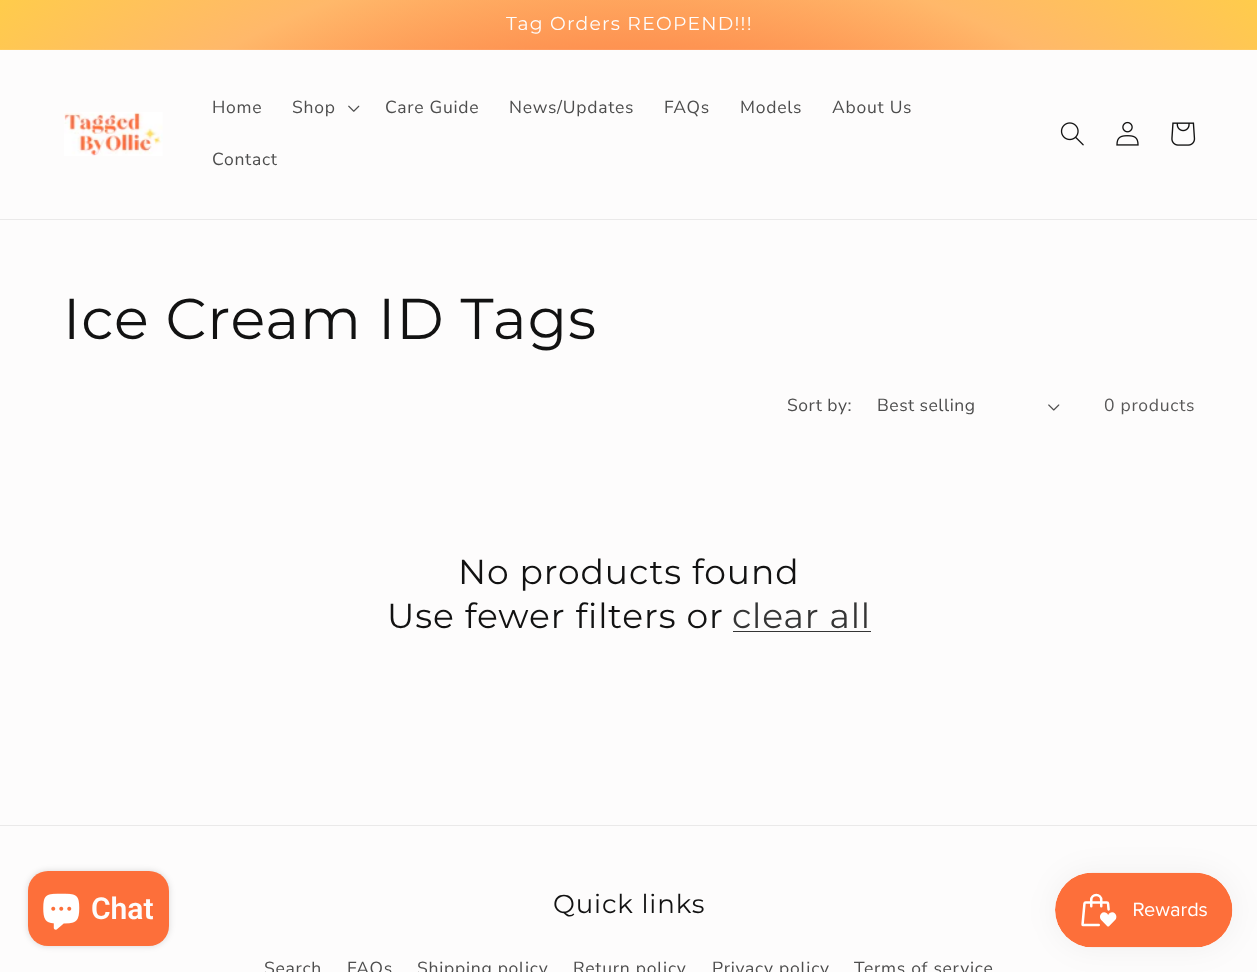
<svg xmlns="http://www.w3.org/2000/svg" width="1257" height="972">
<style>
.a{font:18.75px Montserrat;letter-spacing:1.25px;fill:#fdfcfc}
.b{font:17.5px Nunito Sans;letter-spacing:0.75px;fill:#4d4d4d}
.c{font:57.5px Montserrat;letter-spacing:0.9px;fill:#121212}
.d{font:17.5px Nunito Sans;letter-spacing:0.5px;fill:#4d4d4d}
.e{font:17.5px Nunito Sans;letter-spacing:0.75px;fill:#595858}
.f{font:34.5px Montserrat;letter-spacing:0.9px;fill:#121212}
.g{font:34.5px Montserrat;letter-spacing:0.9px;fill:#353535}
.h{font:600 30px Roboto;fill:#fdfcfc}
.i{font:26px Montserrat;letter-spacing:0.9px;fill:#121212}
</style>
<defs>
<radialGradient id="g1" gradientUnits="userSpaceOnUse" cx="0" cy="0" r="1" gradientTransform="matrix(889 0 0 688 629 486)"><stop offset="0.5" stop-color="#fd6f3a"/><stop offset="0.78" stop-color="#ffb86a"/><stop offset="1" stop-color="#ffcc4b"/></radialGradient>
<radialGradient id="g2" gradientUnits="userSpaceOnUse" cx="0" cy="0" r="1" gradientTransform="matrix(889 0 0 688 629 486)"><stop offset="0.5" stop-color="#fd7a4a"/><stop offset="0.78" stop-color="#ffbd76"/><stop offset="1" stop-color="#ffd059"/></radialGradient>
</defs>
<rect width="100%" height="100%" fill="#fdfcfc"/>
<path fill="url(#g1)" d="M0 0h1257v49H0z"/>
<path fill="url(#g2)" d="M0 49h1257v1H0z"/>
<path fill="#eae9e9" d="M0 219h1257v1H0z"/>
<image href="1.png" x="64" y="112" width="99" height="44"/>
<image href="2.png" x="348" y="105" width="12" height="7"/>
<image href="3.png" x="1060" y="122" width="24" height="24"/>
<image href="4.png" x="1116" y="121" width="23" height="25"/>
<image href="5.png" x="1171" y="122" width="25" height="24"/>
<image href="6.png" x="1048" y="404" width="12" height="7"/>
<path fill="#353535" d="M733 631h138v1H733z"/>
<rect fill="#00000026" filter="blur(3px)" x="28" y="871" width="141" height="75" rx="20"/>
<rect fill="#fd6f3a" x="28" y="871" width="141" height="75" rx="20"/>
<image href="7.png" x="43" y="893" width="37" height="37"/>
<path fill="#eae9e9" d="M0 825h1257v1H0z"/>
<rect fill="#0000000d" filter="blur(15.5px)" x="1055" y="873" width="178" height="75" rx="37.5"/>
<image href="8.png" x="1055" y="872" width="178" height="76"/>
<text class="a" x="506" y="30">Tag Orders REOPEND!!!</text>
<text class="b" x="212" y="113">Home</text>
<text class="b" x="292" y="113">Shop</text>
<text class="b" x="385" y="113">Care Guide</text>
<text class="b" x="509" y="113">News/Updates</text>
<text class="b" x="664" y="113">FAQs</text>
<text class="b" x="740" y="113">Models</text>
<text class="b" x="832" y="113">About Us</text>
<text class="b" x="212" y="165">Contact</text>
<text class="c" x="63" y="339">Ice Cream ID Tags</text>
<text class="d" x="787" y="411">Sort by:</text>
<text class="d" x="877" y="411">Best selling</text>
<text class="e" x="1104" y="411">0 products</text>
<text class="f" x="458" y="584">No products found</text>
<text class="f" x="387" y="628">Use fewer filters or</text>
<text class="g" x="732" y="628">clear all</text>
<text class="h" x="91" y="919">Chat</text>
<text class="i" x="553" y="913">Quick links</text>
<text class="b" x="264" y="974">Search</text>
<text class="b" x="347" y="974">FAQs</text>
<text class="b" x="417" y="974">Shipping policy</text>
<text class="b" x="573" y="974">Return policy</text>
<text class="b" x="712" y="974">Privacy policy</text>
<text class="b" x="854" y="974">Terms of service</text>
</svg>
